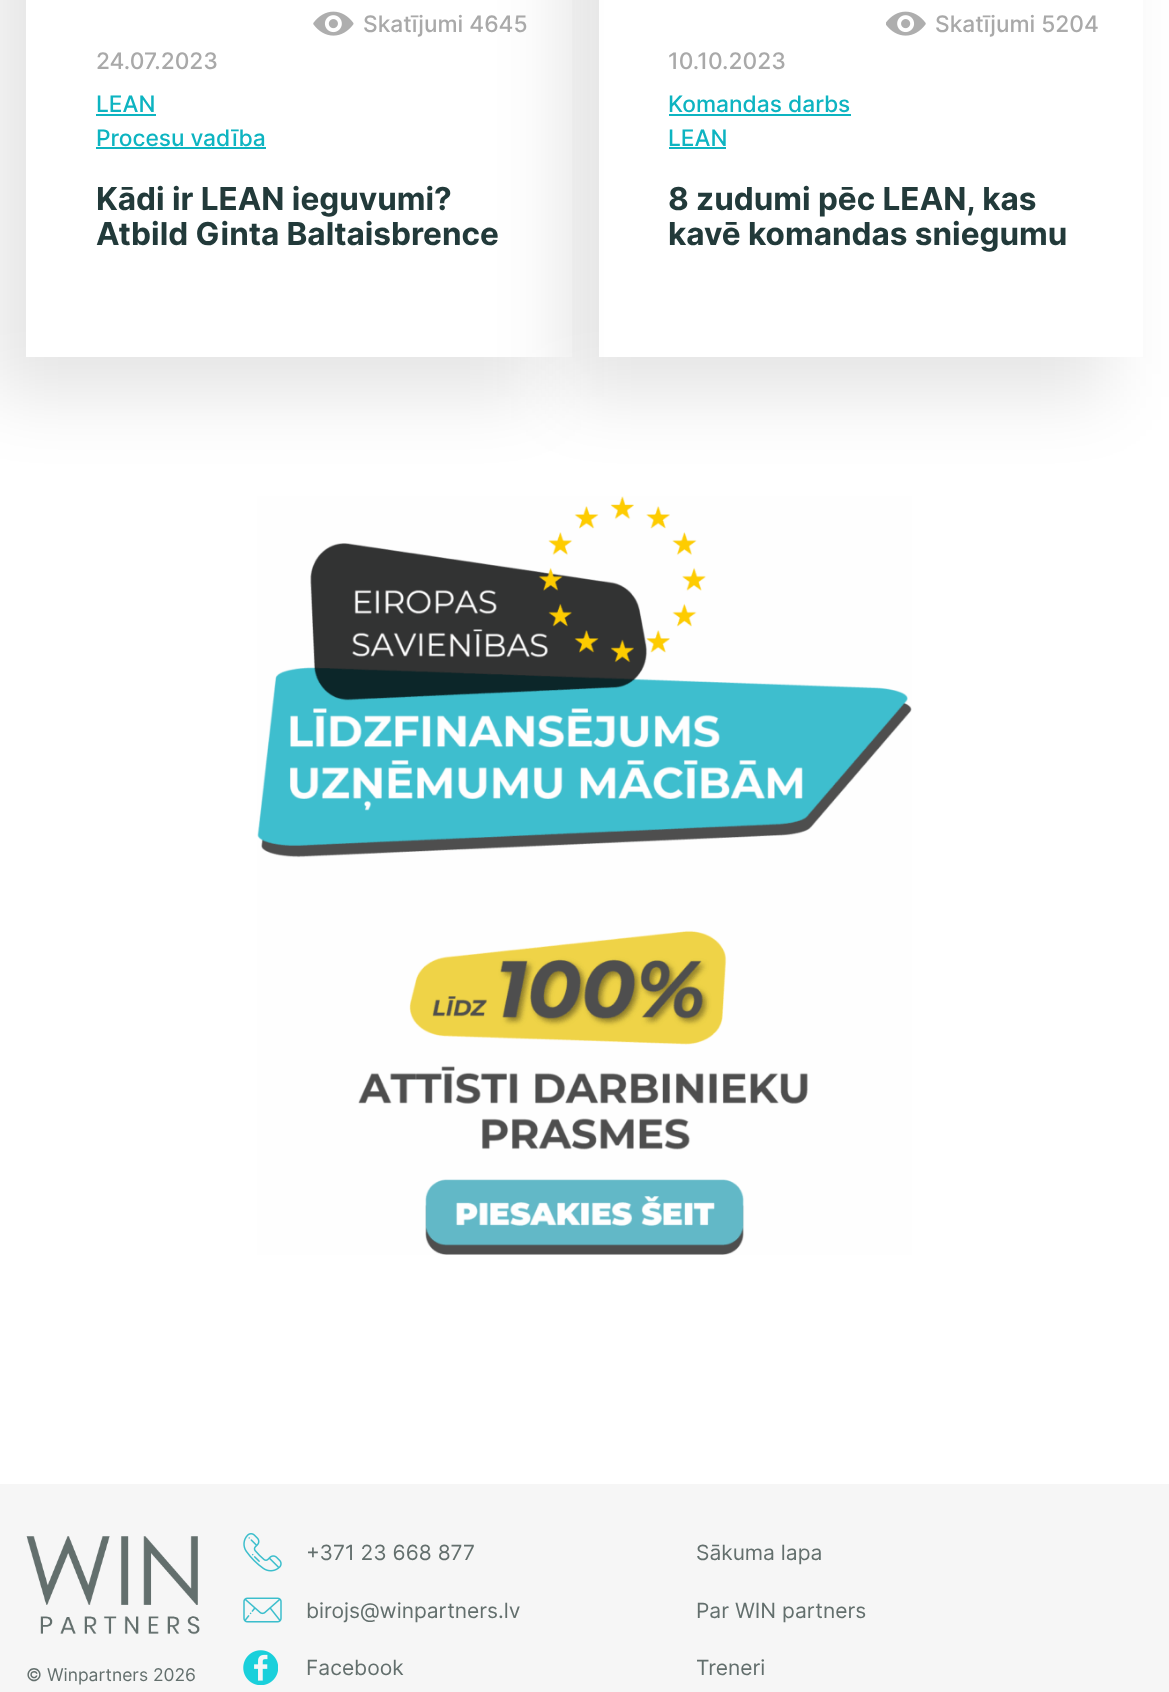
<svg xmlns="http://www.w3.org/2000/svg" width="1169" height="1692">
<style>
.a{font:500 22.75px Inter;fill:#a9a9a9}
.b{font:500 22.75px Inter;fill:#0db4c1}
.c{font:bold 31.5px Inter;fill:#223a3a}
.d{font:17.5px Inter;fill:#636f6d}
.e{font:21px Inter;fill:#636f6d}
</style>
<defs>
<clipPath id="clip1"><path d="M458 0h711v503h-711zm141-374h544v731h-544z" clip-rule="evenodd"/></clipPath>
</defs>
<rect width="100%" height="100%" fill="#fff"/>
<image href="3.png" x="257" y="496" width="655" height="759"/>
<path fill="#0000001a" filter="blur(35px)" d="M-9 -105h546v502H-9z"/>
<path fill="#fff" d="M26 0h546v357H26z"/>
<image href="1.png" x="313" y="11" width="41" height="25"/>
<path fill="#0db4c1" d="M96 114h60v2H96z"/>
<path fill="#0db4c1" d="M96 147h170v2H96z"/>
<g clip-path="url(#clip1)">
<path fill="#0000001a" filter="blur(35px)" d="M564 -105h544v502H564z"/>
</g>
<image href="2.png" x="886" y="11" width="40" height="25"/>
<path fill="#0db4c1" d="M669 114h182v2H669z"/>
<path fill="#0db4c1" d="M669 147h57v2H669z"/>
<path fill="#f6f6f6" d="M0 1484h1169v208H0z"/>
<image href="4.png" x="26" y="1536" width="174" height="99"/>
<image href="5.png" x="243" y="1533" width="39" height="39"/>
<image href="6.png" x="243" y="1597" width="39" height="26"/>
<image href="7.png" x="243" y="1650" width="35" height="35"/>
<text class="a" x="363" y="32">Skatījumi 4645</text>
<text class="a" x="96" y="69">24.07.2023</text>
<text class="b" x="96" y="112">LEAN</text>
<text class="b" x="96" y="146">Procesu vadība</text>
<text class="c" x="96" y="210">Kādi ir LEAN ieguvumi?</text>
<text class="c" x="96" y="245">Atbild Ginta Baltaisbrence</text>
<text class="a" x="935" y="32">Skatījumi 5204</text>
<text class="a" x="668" y="69">10.10.2023</text>
<text class="b" x="668" y="112">Komandas darbs</text>
<text class="b" x="668" y="146">LEAN</text>
<text class="c" x="668" y="210">8 zudumi pēc LEAN, kas</text>
<text class="c" x="668" y="245">kavē komandas sniegumu</text>
<text class="d" x="26" y="1681">© Winpartners 2026</text>
<text class="e" x="306" y="1560">+371 23 668 877</text>
<text class="e" x="306" y="1618">birojs@winpartners.lv</text>
<text class="e" x="306" y="1675">Facebook</text>
<text class="e" x="696" y="1560">Sākuma lapa</text>
<text class="e" x="696" y="1618">Par WIN partners</text>
<text class="e" x="696" y="1675">Treneri</text>
</svg>
